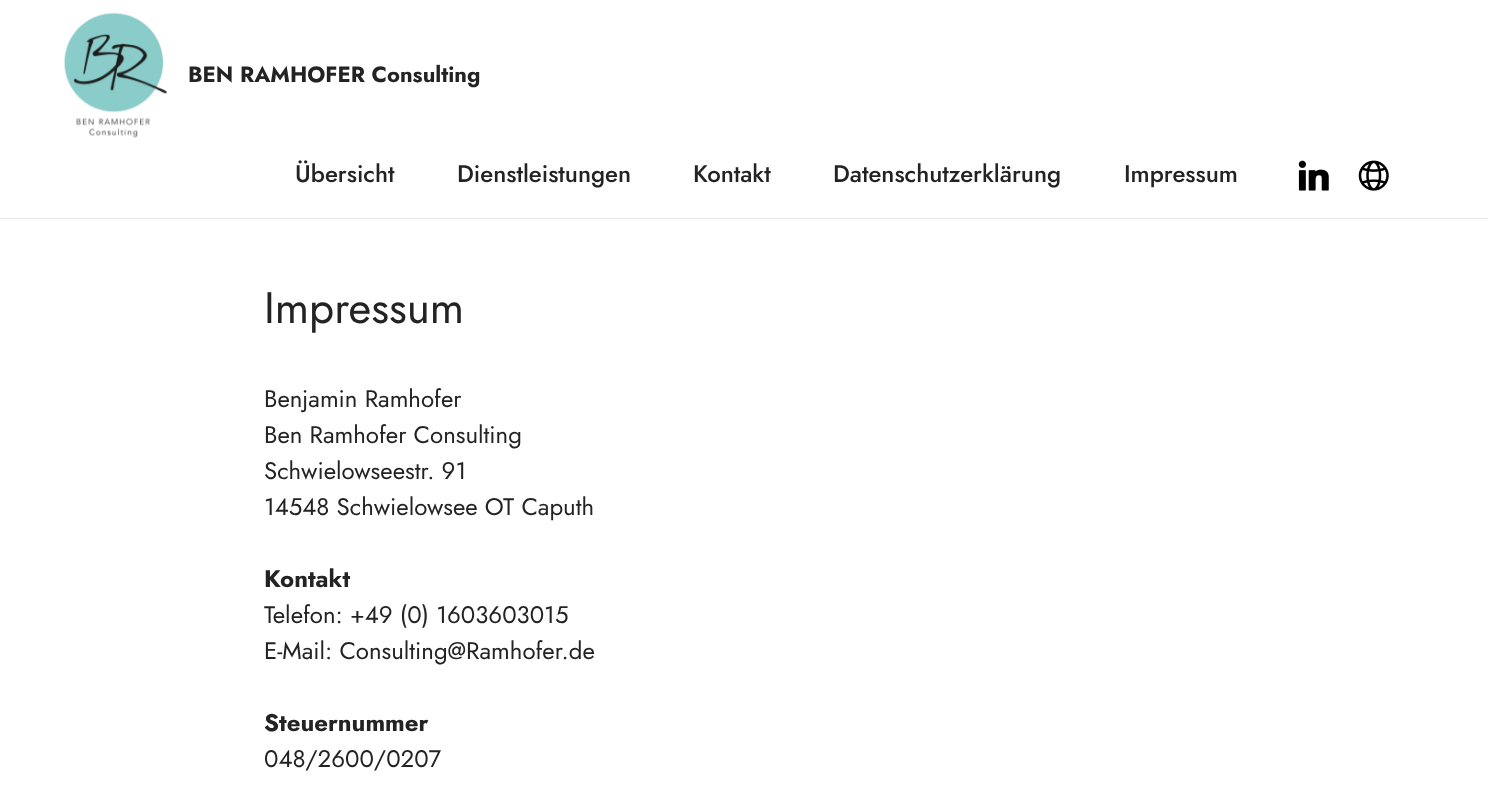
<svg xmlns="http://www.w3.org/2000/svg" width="1488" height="790">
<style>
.a{font:bold 22px Jost;fill:#232323}
.b{font:500 24px Jost;fill:#232323}
.c{font:44px Jost;fill:#232323}
.d{font:24px Jost;fill:#232323}
.e{font:bold 24px Jost;fill:#232323}
</style>
<rect width="100%" height="100%" fill="#fff"/>
<path fill="#e6e6e6" d="M0 218h1488v1H0z"/>
<image href="1.png" x="64" y="12" width="103" height="126"/>
<image href="2.png" x="1298" y="160" width="31" height="31"/>
<image href="3.png" x="1358" y="160" width="31" height="31"/>
<text class="a" x="188" y="82">BEN RAMHOFER Consulting</text>
<text class="b" x="295" y="182">Übersicht</text>
<text class="b" x="457" y="182">Dienstleistungen</text>
<text class="b" x="693" y="182">Kontakt</text>
<text class="b" x="833" y="182">Datenschutzerklärung</text>
<text class="b" x="1124" y="182">Impressum</text>
<text class="c" x="264" y="323">Impressum</text>
<text class="d" x="264" y="407">Benjamin Ramhofer</text>
<text class="d" x="264" y="443">Ben Ramhofer Consulting</text>
<text class="d" x="264" y="479">Schwielowseestr. 91</text>
<text class="d" x="264" y="515">14548 Schwielowsee OT Caputh</text>
<text class="e" x="264" y="587">Kontakt</text>
<text class="d" x="264" y="623">Telefon: +49 (0) 1603603015</text>
<text class="d" x="264" y="659">E-Mail: Consulting@Ramhofer.de</text>
<text class="e" x="264" y="731">Steuernummer</text>
<text class="d" x="264" y="767">048/2600/0207</text>
</svg>
